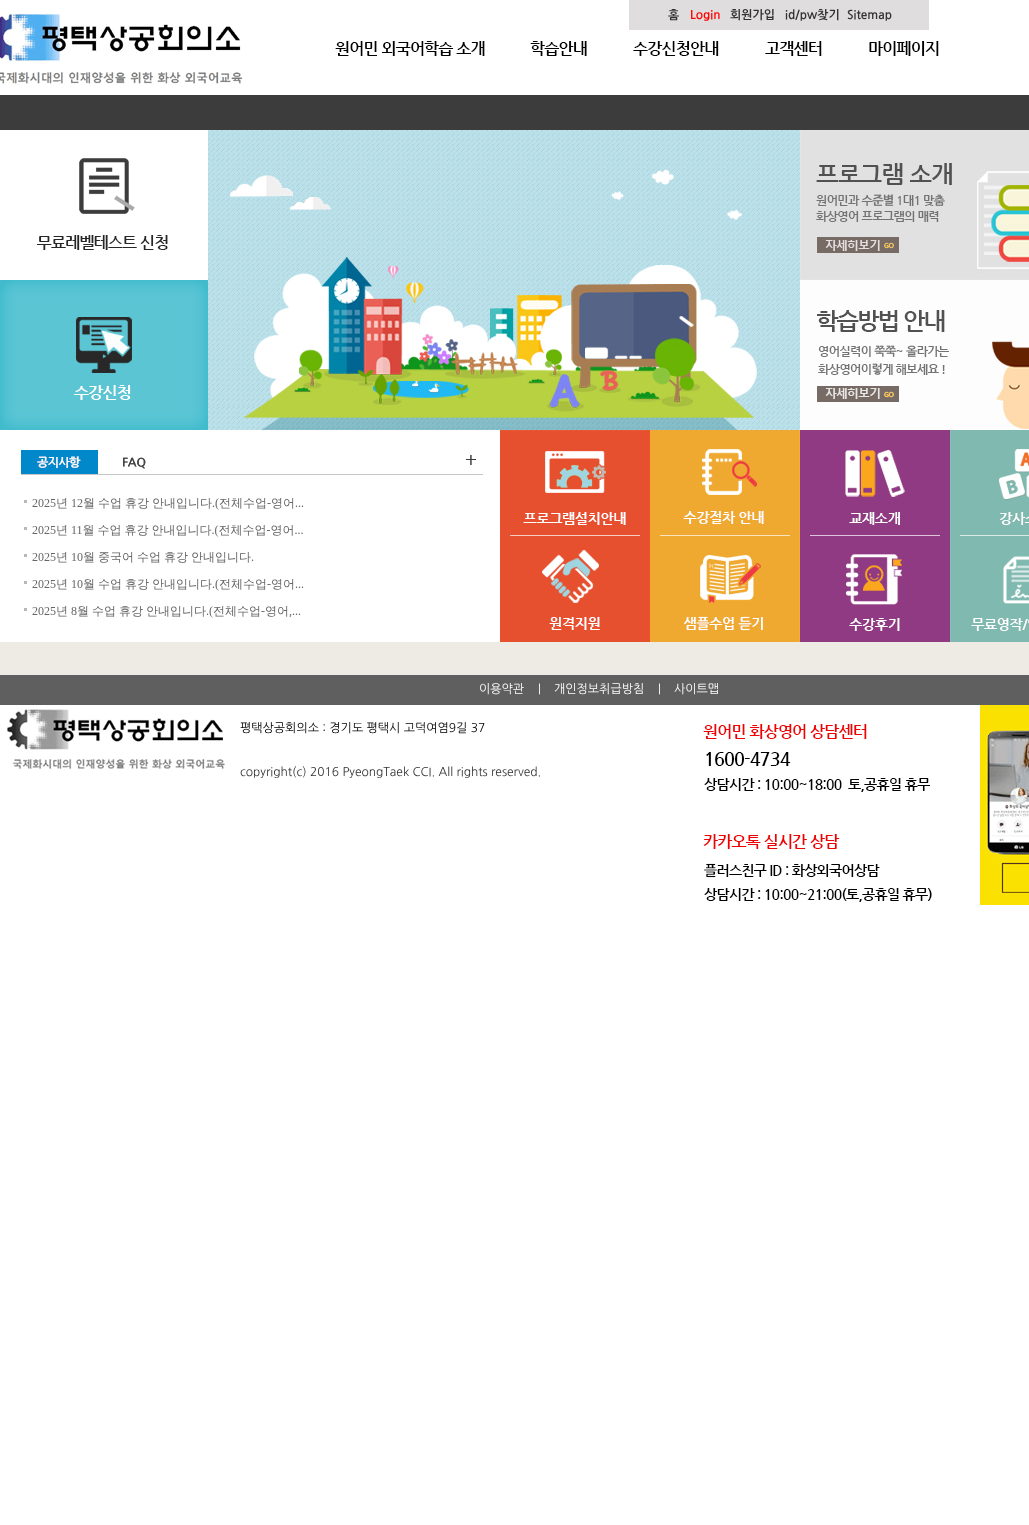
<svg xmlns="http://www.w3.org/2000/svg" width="1029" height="1525">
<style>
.a{font:bold 12px NanumGothic;fill:#333}
.b{font:bold 12px NanumGothic;fill:#f00}
.c{font:12px NanumGothic;fill:#fff}
.d{font:12px NanumGothic;fill:#000}
.e{font:12px NanumGothic;fill:#333}
</style>
<rect width="100%" height="100%" fill="#fff"/>
<path fill="#dfdddd" d="M629 0h300v30H629z"/>
<path fill="#3c3c3c" d="M0 95h1029v35H0z"/>
<image href="1.png" x="0" y="12" width="243" height="74"/>
<image href="2.png" x="335" y="41" width="150" height="15"/>
<image href="3.png" x="530" y="41" width="57" height="15"/>
<image href="4.png" x="633" y="41" width="86" height="15"/>
<image href="5.png" x="765" y="41" width="57" height="15"/>
<image href="6.png" x="869" y="41" width="70" height="15"/>
<path fill="#eeebe5" d="M0 642h1029v33H0z"/>
<image href="7.png" x="0" y="130" width="208" height="150"/>
<image href="8.png" x="0" y="280" width="208" height="150"/>
<image href="9.png" x="208" y="130" width="592" height="300"/>
<image href="10.png" x="800" y="130" width="229" height="150"/>
<image href="11.png" x="800" y="280" width="229" height="150"/>
<image href="12.png" x="0" y="430" width="500" height="212"/>
<image href="13.png" x="500" y="430" width="150" height="106"/>
<image href="14.png" x="500" y="536" width="150" height="106"/>
<image href="15.png" x="650" y="430" width="150" height="106"/>
<image href="16.png" x="650" y="536" width="150" height="106"/>
<image href="17.png" x="800" y="430" width="150" height="106"/>
<image href="18.png" x="800" y="536" width="150" height="106"/>
<image href="19.png" x="950" y="430" width="79" height="106"/>
<image href="20.png" x="950" y="536" width="79" height="106"/>
<path fill="#5f5f5f" d="M0 675h1029v30H0z"/>
<image href="21.png" x="6" y="709" width="219" height="60"/>
<image href="22.png" x="703" y="724" width="227" height="68"/>
<image href="23.png" x="703" y="834" width="229" height="68"/>
<image href="24.png" x="980" y="705" width="49" height="200"/>
<text class="a" x="668" y="19">홈</text>
<text class="b" x="690" y="19">Login</text>
<text class="a" x="730" y="19">회원가입</text>
<text class="a" x="785" y="19">id/pw찾기</text>
<text class="a" x="847" y="19">Sitemap</text>
<text class="c" x="479" y="693">이용약관</text>
<text class="c" x="538" y="693">|</text>
<text class="c" x="554" y="693">개인정보취급방침</text>
<text class="c" x="658" y="693">|</text>
<text class="c" x="674" y="693">사이트맵</text>
<text class="d" x="240" y="732">평택상공회의소 : 경기도 평택시 고덕여염9길 37</text>
<text class="e" x="240" y="776">copyright(c) 2016 PyeongTaek CCI. All rights reserved.</text>
</svg>
